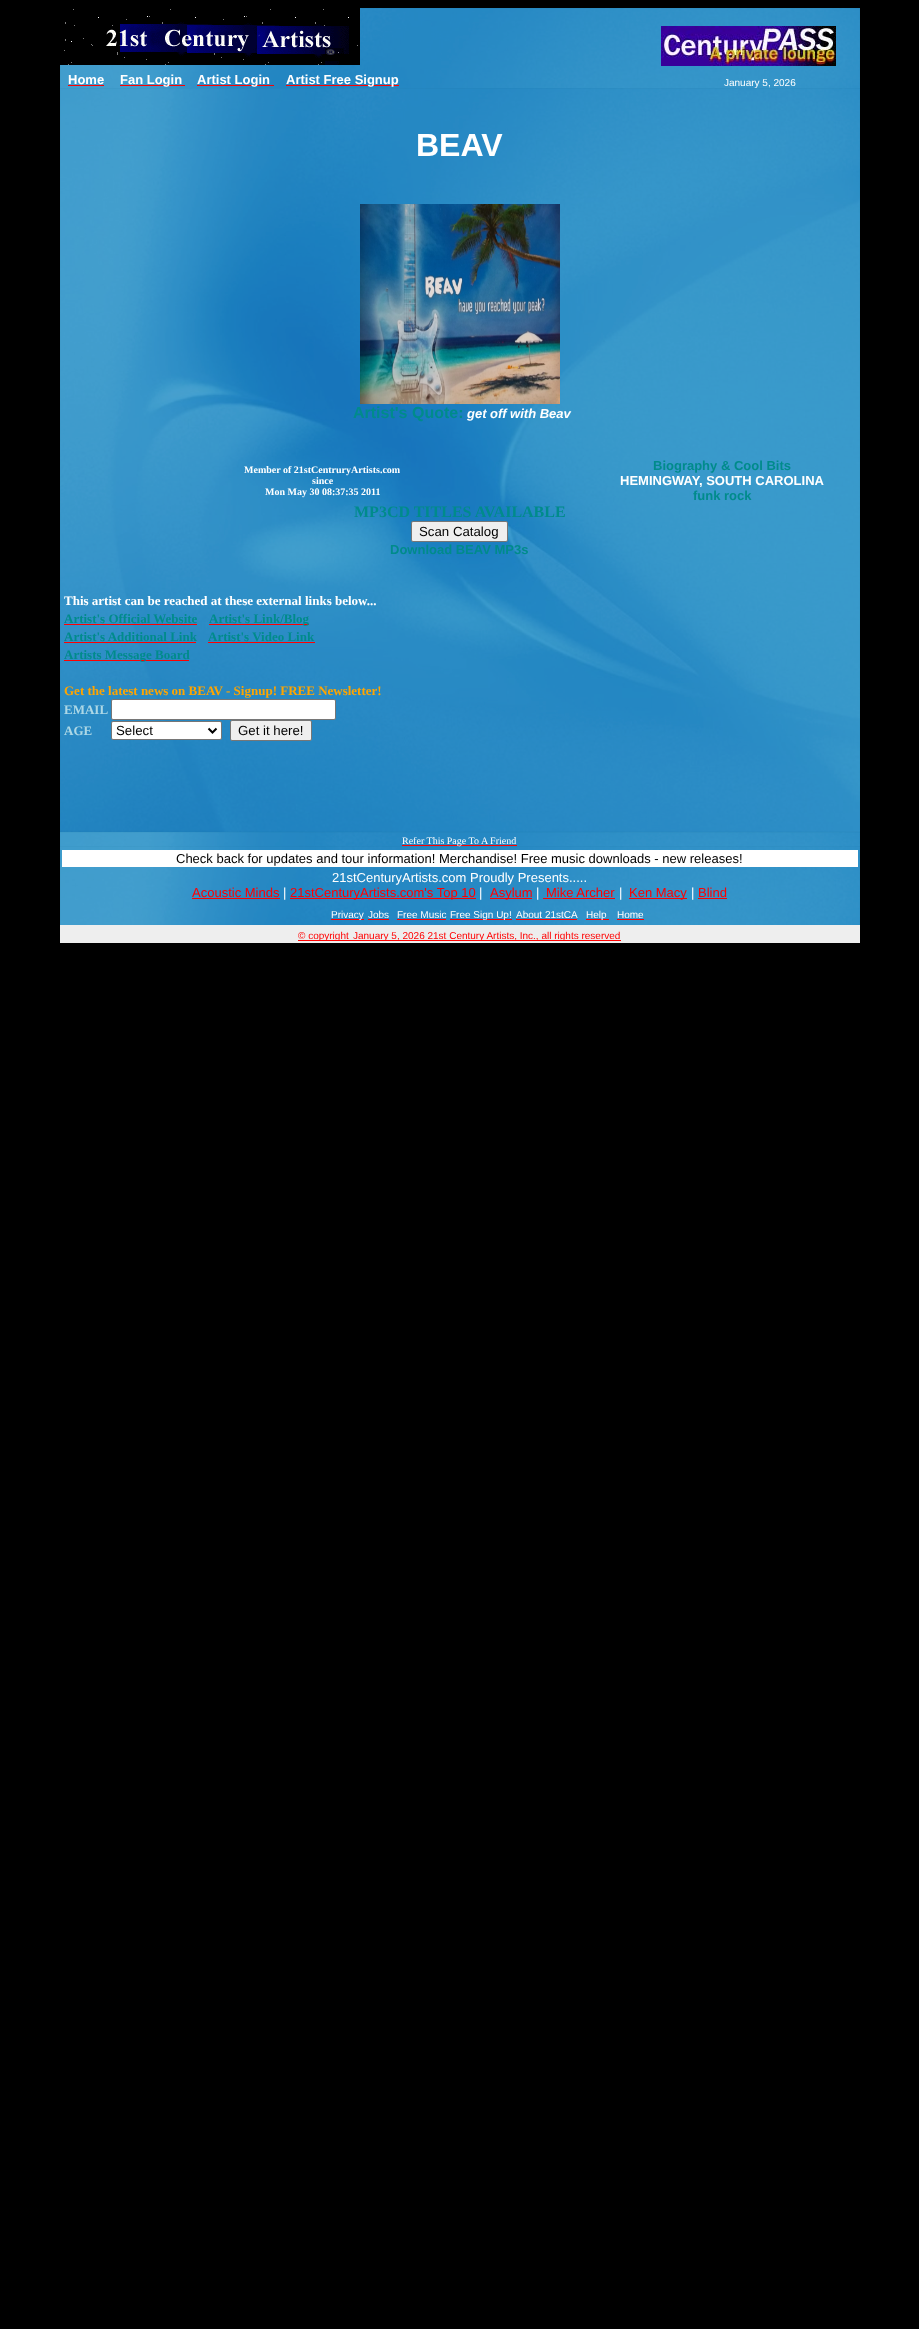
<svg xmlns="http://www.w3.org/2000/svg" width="919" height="2329">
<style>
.a{font:bold 13px Liberation Sans;fill:#fff}
.b{font:10px Liberation Sans;fill:#fff}
.c{font:bold 32px Liberation Sans;fill:#fff}
.d{font:bold 16px Liberation Sans;fill:#008b8b}
.e{font:italic bold 13px Liberation Sans;fill:#fff}
.f{font:bold 10px Liberation Serif;fill:#fff}
.g{font:bold 13px Liberation Sans;fill:#008b8b}
.h{font:bold 16px Liberation Serif;fill:#008b8b}
.i{font:13.25px Liberation Sans;fill:#000}
.j{font:bold 13px Liberation Serif;fill:#fff}
.k{font:bold 13px Liberation Serif;fill:#008b8b}
.l{font:bold 13px Liberation Serif;fill:#ffa500}
.m{font:bold 13px Liberation Serif;fill:#add8e6}
.n{font:10px Liberation Serif;fill:#fff}
.o{font:13px Liberation Sans;fill:#000}
.p{font:13px Liberation Sans;fill:#fff}
.q{font:13px Liberation Sans;fill:#f00}
.r{font:10px Liberation Sans;fill:#f00}
</style>
<rect width="100%" height="100%" fill="#000"/>
<image href="1.png" x="60" y="8" width="800" height="80"/>
<image href="2.png" x="60" y="8" width="300" height="57"/>
<image href="3.png" x="661" y="26" width="175" height="40"/>
<path fill="#f00" d="M68 85h36v1H68z"/>
<path fill="#f00" d="M120 85h65v1H120z"/>
<path fill="#f00" d="M197 85h77v1H197z"/>
<path fill="#f00" d="M286 85h113v1H286z"/>
<image href="4.png" x="60" y="88" width="800" height="758"/>
<image href="5.png" x="360" y="204" width="200" height="200"/>
<rect fill="#efefef" stroke="#767676" x="411.5" y="521.5" width="96" height="20" rx="1.5"/>
<path fill="#f00" d="M64 624h133v1H64z"/>
<path fill="#f00" d="M209 624h100v1H209z"/>
<path fill="#f00" d="M64 642h132v1H64z"/>
<path fill="#f00" d="M208 642h107v1H208z"/>
<path fill="#f00" d="M64 660h125v1H64z"/>
<rect fill="#fff" stroke="#767676" x="111.5" y="699.5" width="224" height="20" rx="1.5"/>
<rect fill="#fff" stroke="#767676" x="111.5" y="721.5" width="110" height="18" rx="1.5"/>
<path fill="none" stroke="#000" stroke-width="2" d="M208.5 728.5l4 4l4-4"/>
<rect fill="#efefef" stroke="#767676" x="230.5" y="720.5" width="81" height="20" rx="1.5"/>
<path fill="#f00" d="M402 845h115v1H402z"/>
<image href="6.png" x="60" y="846" width="800" height="79"/>
<path fill="#fff" d="M62 850h796v17H62z"/>
<path fill="#f00" d="M192 898h88v1H192z"/>
<path fill="#f00" d="M290 898h186v1H290z"/>
<path fill="#f00" d="M490 898h42v1H490z"/>
<path fill="#f00" d="M543 898h72v1H543z"/>
<path fill="#f00" d="M629 898h58v1H629z"/>
<path fill="#f00" d="M698 898h29v1H698z"/>
<path fill="#f00" d="M331 919h33v1H331z"/>
<path fill="#f00" d="M368 919h21v1H368z"/>
<path fill="#f00" d="M397 919h49v1H397z"/>
<path fill="#f00" d="M450 919h62v1H450z"/>
<path fill="#f00" d="M516 919h61v1H516z"/>
<path fill="#f00" d="M586 919h23v1H586z"/>
<path fill="#f00" d="M617 919h27v1H617z"/>
<path fill="#eee" d="M60 925h800v18H60z"/>
<path fill="#f00" d="M298 940h51v1H298z"/>
<path fill="#f00" d="M349 940h272v1H349z"/>
<text class="a" x="68" y="84">Home</text>
<text class="a" x="120" y="84">Fan Login</text>
<text class="a" x="197" y="84">Artist Login</text>
<text class="a" x="286" y="84">Artist Free Signup</text>
<text class="b" x="724" y="86">January 5, 2026</text>
<text class="c" x="416" y="156">BEAV</text>
<text class="d" x="353" y="418">Artist's Quote:</text>
<text class="e" x="467" y="418">get off with Beav</text>
<text class="f" x="244" y="473">Member of 21stCentruryArtists.com</text>
<text class="f" x="312" y="484">since</text>
<text class="f" x="265" y="495">Mon May 30 08:37:35 2011</text>
<text class="g" x="653" y="470">Biography &amp; Cool Bits</text>
<text class="a" x="620" y="485">HEMINGWAY, SOUTH CAROLINA</text>
<text class="g" x="693" y="500">funk rock</text>
<text class="h" x="354" y="517">MP3CD TITLES AVAILABLE</text>
<text class="i" x="419" y="536">Scan Catalog</text>
<text class="g" x="390" y="554">Download BEAV MP3s</text>
<text class="j" x="64" y="605">This artist can be reached at these external links below...</text>
<text class="k" x="64" y="623">Artist's Official Website</text>
<text class="k" x="209" y="623">Artist's Link/Blog</text>
<text class="k" x="64" y="641">Artist's Additional Link</text>
<text class="k" x="208" y="641">Artist's Video Link</text>
<text class="k" x="64" y="659">Artists Message Board</text>
<text class="l" x="64" y="695">Get the latest news on BEAV - Signup! FREE Newsletter!</text>
<text class="m" x="64" y="714">EMAIL</text>
<text class="m" x="64" y="735">AGE</text>
<text class="i" x="116" y="735">Select</text>
<text class="i" x="238" y="735">Get it here!</text>
<text class="n" x="402" y="844">Refer This Page To A Friend</text>
<text class="o" x="176" y="863">Check back for updates and tour information! Merchandise! Free music downloads - new releases!</text>
<text class="p" x="332" y="882">21stCenturyArtists.com Proudly Presents.....</text>
<text class="q" x="192" y="897">Acoustic Minds</text>
<text class="p" x="283" y="897">|</text>
<text class="q" x="290" y="897">21stCenturyArtists.com's Top 10</text>
<text class="p" x="479" y="897">|</text>
<text class="q" x="490" y="897">Asylum</text>
<text class="p" x="536" y="897">|</text>
<text class="q" x="546" y="897">Mike Archer</text>
<text class="p" x="619" y="897">|</text>
<text class="q" x="629" y="897">Ken Macy</text>
<text class="p" x="691" y="897">|</text>
<text class="q" x="698" y="897">Blind</text>
<text class="b" x="331" y="918">Privacy</text>
<text class="b" x="368" y="918">Jobs</text>
<text class="b" x="397" y="918">Free Music</text>
<text class="b" x="450" y="918">Free Sign Up!</text>
<text class="b" x="516" y="918">About 21stCA</text>
<text class="b" x="586" y="918">Help</text>
<text class="b" x="617" y="918">Home</text>
<text class="r" x="298" y="939">© copyright</text>
<text class="r" x="353" y="939">January 5, 2026 21st Century Artists, Inc., all rights reserved</text>
</svg>
